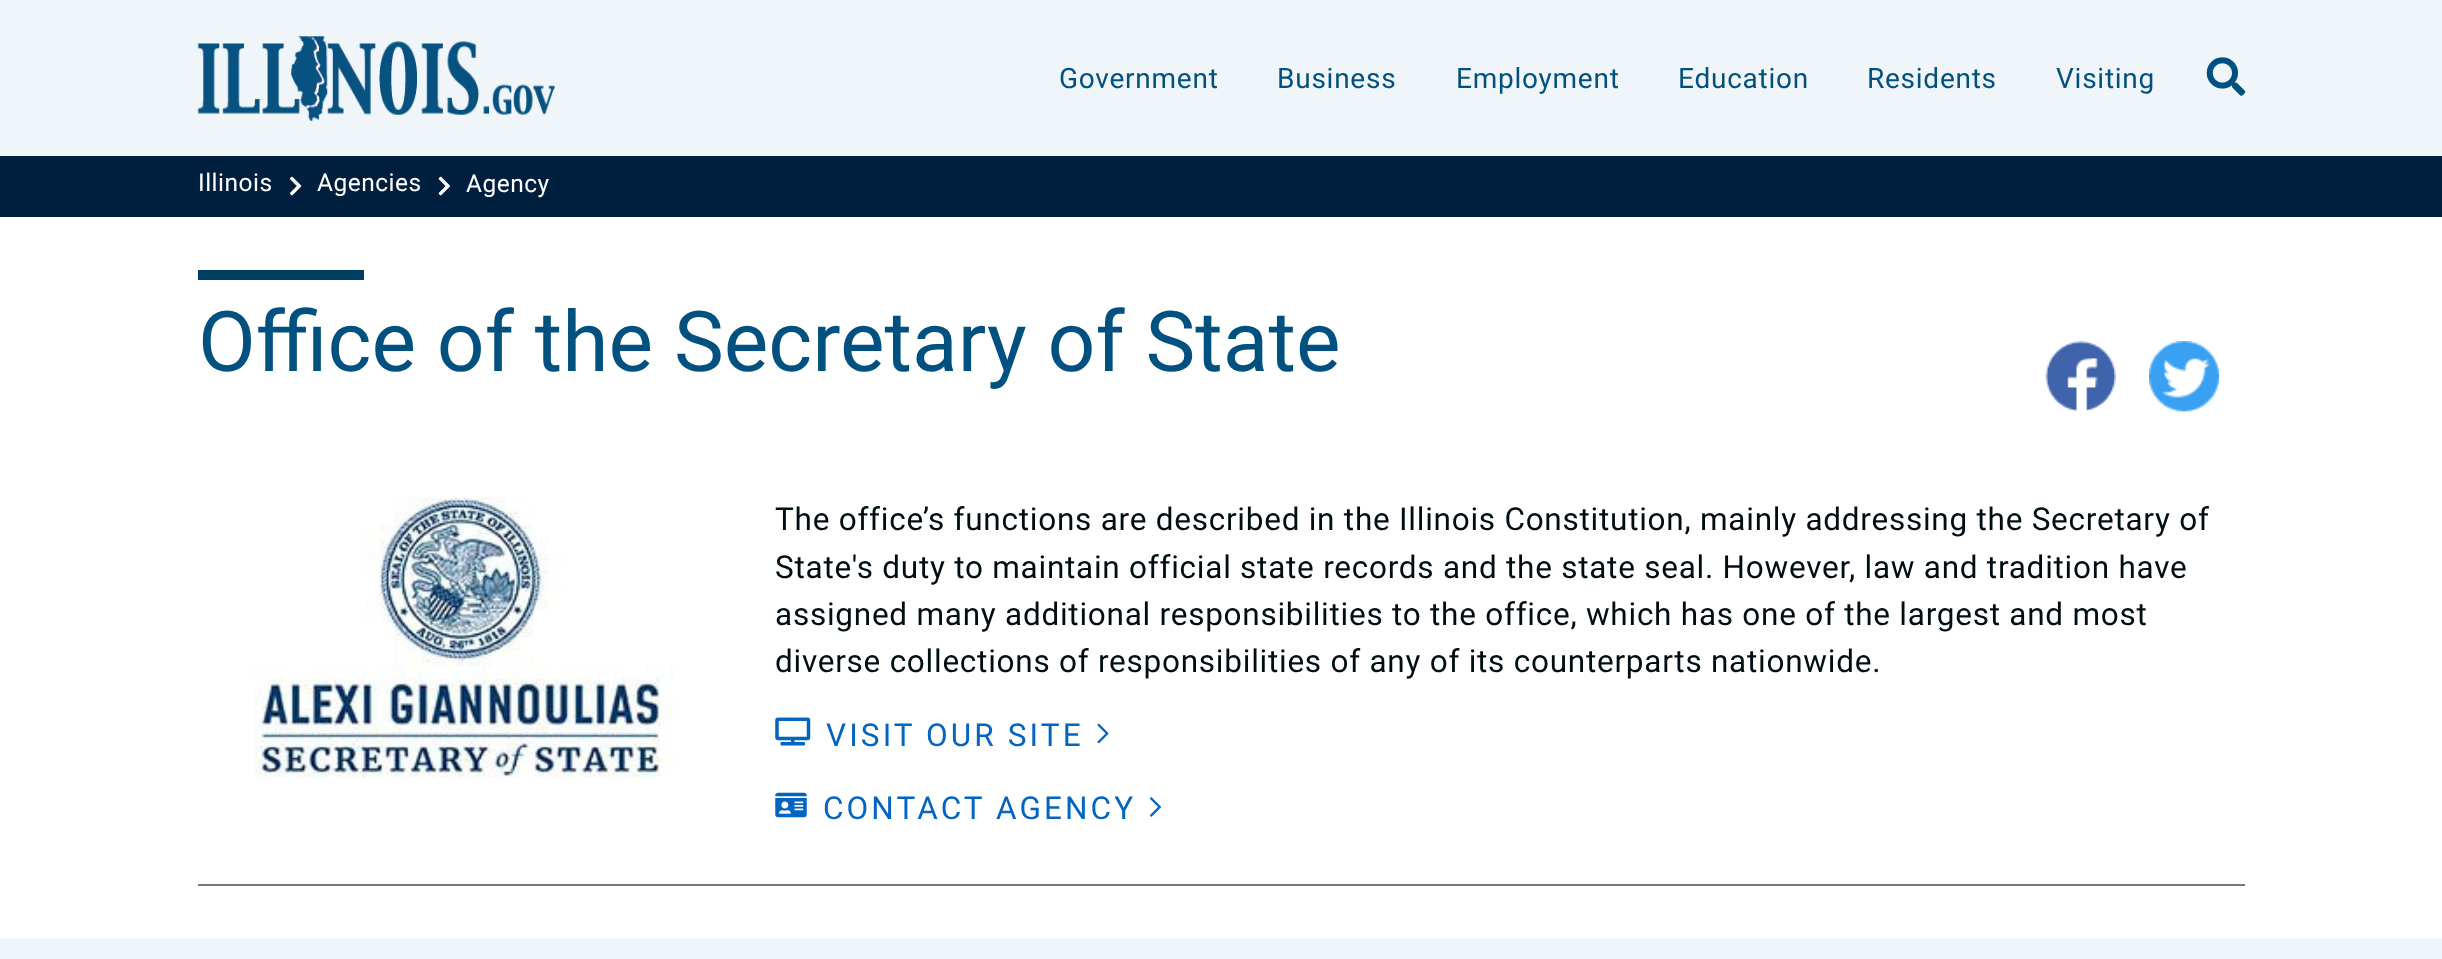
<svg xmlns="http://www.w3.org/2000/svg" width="2442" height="959">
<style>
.a{font:28px Roboto;letter-spacing:0.75px;fill:#005180}
.b{font:24.5px Roboto;letter-spacing:0.5px;fill:#fff}
.c{font:84px Roboto;fill:#005180}
.d{font:31.5px Roboto;letter-spacing:0.75px;fill:#000e14}
.e{font:31.5px Roboto;letter-spacing:3.1px;fill:#0365c0}
</style>
<rect width="100%" height="100%" fill="#fff"/>
<path fill="#f0f5fa" d="M0 0h2442v156H0z"/>
<image href="1.png" x="197" y="35" width="358" height="86"/>
<image href="2.png" x="2206" y="57" width="40" height="39"/>
<path fill="#001f3f" d="M0 156h2442v61H0z"/>
<image href="3.png" x="289" y="176" width="13" height="20"/>
<image href="4.png" x="438" y="176" width="12" height="20"/>
<path fill="#787878" d="M198 884h2047v2H198z"/>
<path fill="#003e62" d="M198 270h166v10H198z"/>
<image href="5.png" x="2045" y="341" width="71" height="71"/>
<image href="6.png" x="2149" y="341" width="70" height="71"/>
<image href="7.png" x="253" y="497" width="421" height="281"/>
<image href="8.png" x="775" y="717" width="36" height="29"/>
<image href="9.png" x="1097" y="723" width="12" height="21"/>
<image href="10.png" x="775" y="792" width="32" height="26"/>
<image href="11.png" x="1149" y="797" width="13" height="20"/>
<path fill="#f0f5fa" d="M0 938h2442v21H0z"/>
<text class="a" x="1059" y="88">Government</text>
<text class="a" x="1277" y="88">Business</text>
<text class="a" x="1456" y="88">Employment</text>
<text class="a" x="1678" y="88">Education</text>
<text class="a" x="1867" y="88">Residents</text>
<text class="a" x="2056" y="88">Visiting</text>
<text class="b" x="198" y="191">Illinois</text>
<text class="b" x="317" y="191">Agencies</text>
<text class="b" x="466" y="192">Agency</text>
<text class="c" x="198" y="371">Office of the Secretary of State</text>
<text class="d" x="775" y="530">The office’s functions are described in the Illinois Constitution, mainly addressing the Secretary of</text>
<text class="d" x="775" y="578">State's duty to maintain official state records and the state seal. However, law and tradition have</text>
<text class="d" x="775" y="625">assigned many additional responsibilities to the office, which has one of the largest and most</text>
<text class="d" x="775" y="672">diverse collections of responsibilities of any of its counterparts nationwide.</text>
<text class="e" x="826" y="746">VISIT OUR SITE</text>
<text class="e" x="823" y="819">CONTACT AGENCY</text>
</svg>
